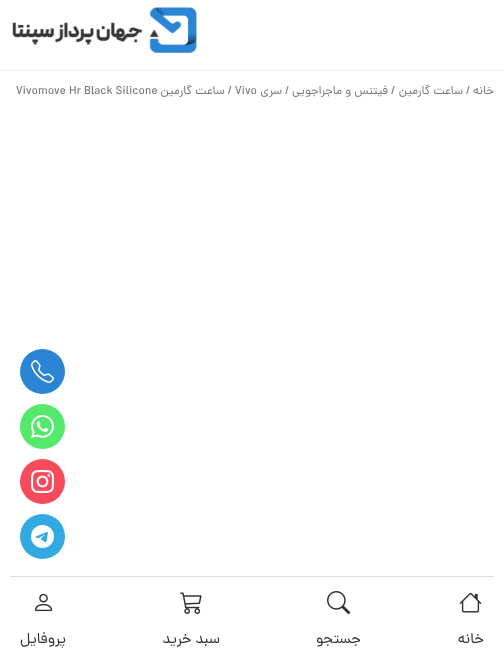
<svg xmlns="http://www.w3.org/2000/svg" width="504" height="659">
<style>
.a{font:12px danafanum;direction:rtl;fill:#767676}
.b{font:12px danafanum;fill:#767676}
.c{font:15px danafanum;direction:rtl;fill:#313030}
</style>
<rect width="100%" height="100%" fill="#fff"/>
<circle fill="#2b85d4" cx="42.5" cy="371.5" r="22.5"/>
<image href="1.png" x="31" y="360" width="23" height="23"/>
<circle fill="#54e96a" cx="42.5" cy="426.5" r="22.5"/>
<image href="2.png" x="31" y="415" width="23" height="23"/>
<circle fill="#f74b5c" cx="42.5" cy="481.5" r="22.5"/>
<image href="3.png" x="31" y="470" width="23" height="23"/>
<circle fill="#32a9e1" cx="42.5" cy="536.5" r="22.5"/>
<image href="4.png" x="31" y="525" width="23" height="23"/>
<path fill="#eee" d="M0 70h504v1H0z"/>
<image href="5.png" x="12" y="7" width="185" height="46"/>
<path fill="#ddd" d="M10 576h484v1H10z"/>
<image href="6.png" x="459" y="592" width="23" height="21"/>
<image href="7.png" x="327" y="591" width="23" height="23"/>
<image href="8.png" x="180" y="592" width="22" height="22"/>
<image href="9.png" x="34" y="593" width="19" height="19"/>
<text class="a" x="494" y="94">خانه</text>
<text class="b" x="466" y="94">/</text>
<text class="a" x="463" y="94">ساعت گارمین</text>
<text class="b" x="391" y="94">/</text>
<text class="a" x="388" y="94">فیتنس و ماجراجویی</text>
<text class="b" x="285" y="94">/</text>
<text class="a" x="282" y="94">سری</text>
<text class="b" x="235" y="94">Vivo</text>
<text class="a" x="232" y="94">/ ساعت گارمین</text>
<text class="b" x="16" y="94">Vivomove Hr Black Silicone</text>
<text class="c" x="484" y="643">خانه</text>
<text class="c" x="361" y="643">جستجو</text>
<text class="c" x="220" y="643">سبد خرید</text>
<text class="c" x="66" y="643">پروفایل</text>
</svg>
